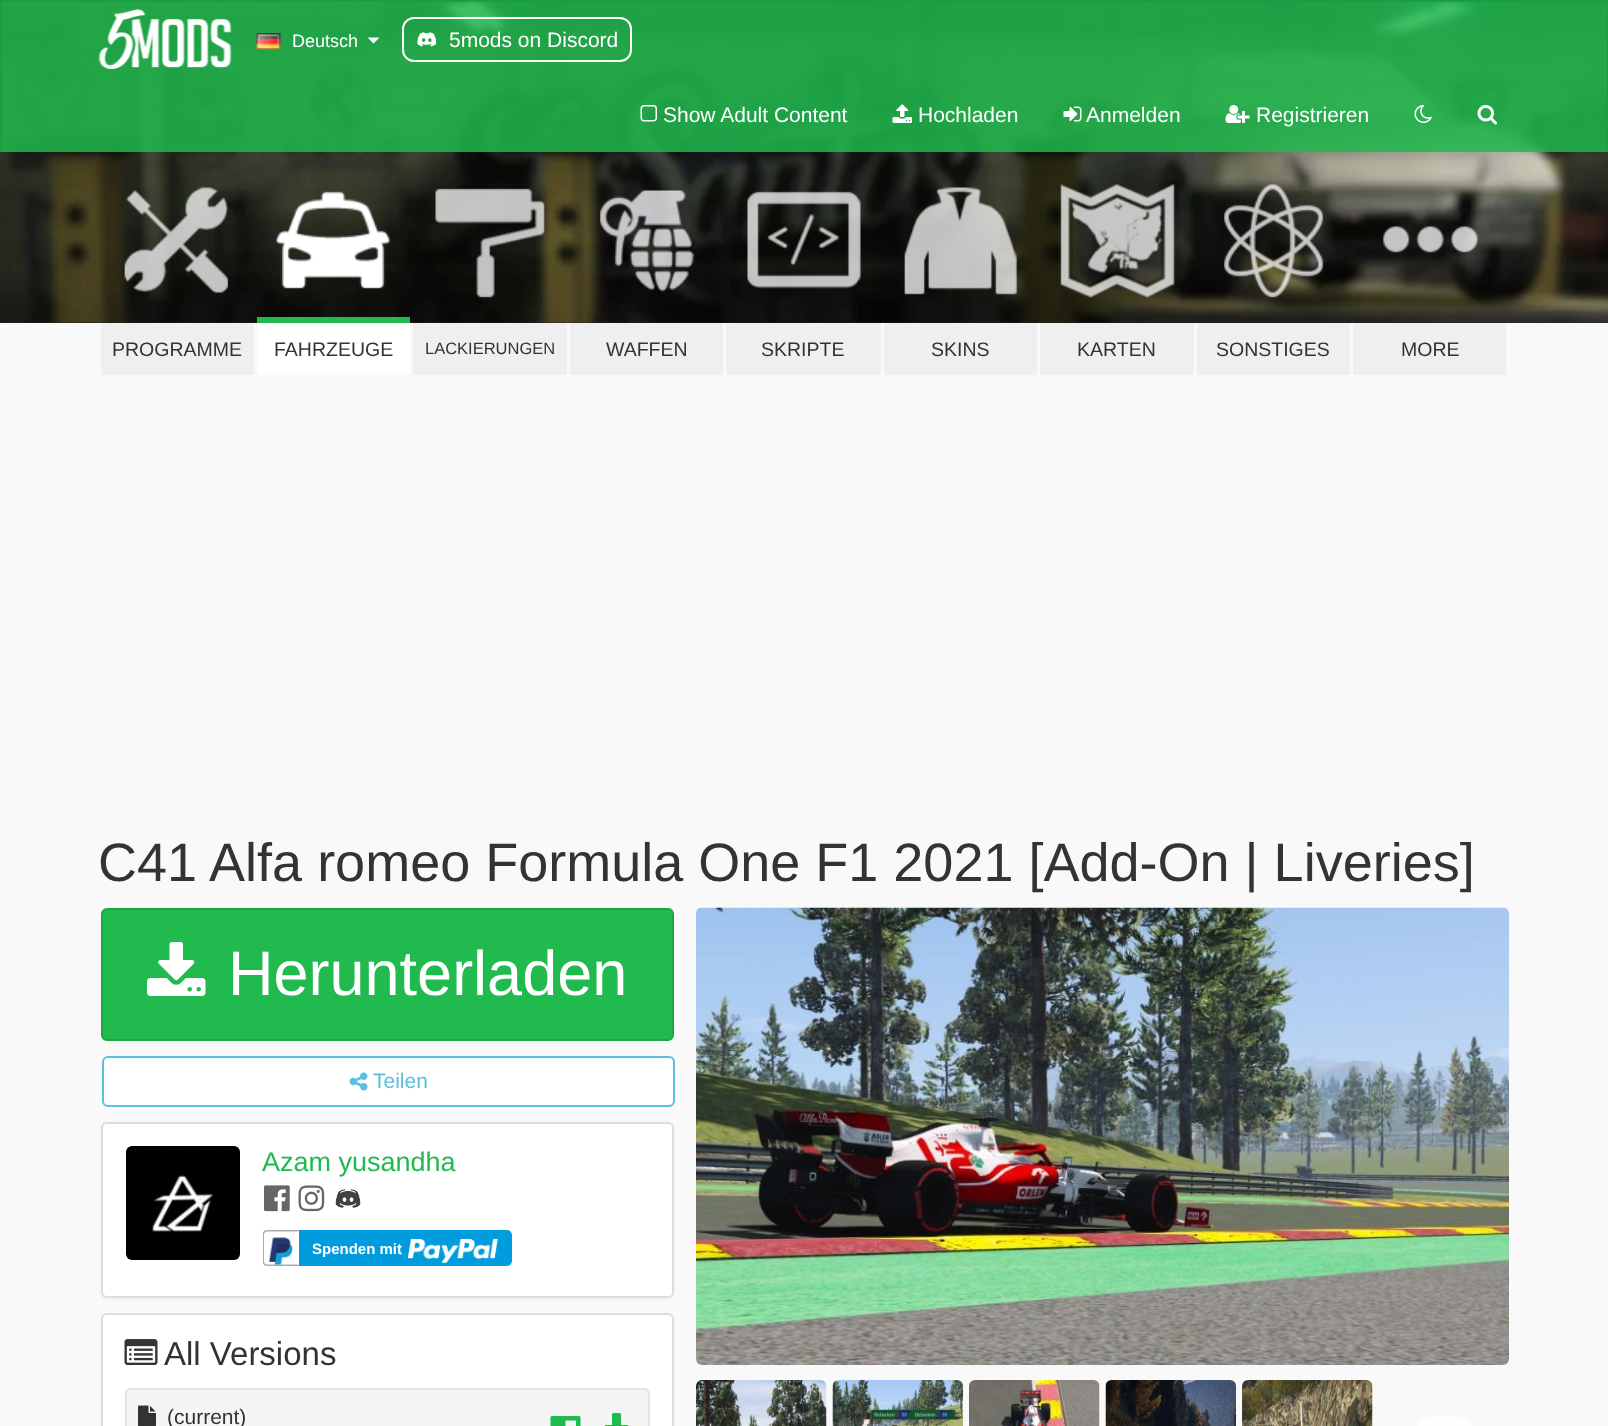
<svg xmlns="http://www.w3.org/2000/svg" width="1608" height="1426">
<style>
.a{font:18px Liberation Sans;fill:#fff}
.b{font:21px Liberation Sans;fill:#fff}
.c{font:19.5px Liberation Sans;fill:#333}
.d{font:16.5px Liberation Sans;fill:#333}
.e{font:54px Liberation Sans;fill:#333}
.f{font:63px Liberation Sans;fill:#fff}
.g{font:21px Liberation Sans;fill:#5bc0de}
.h{font:27px Liberation Sans;fill:#20ba4e}
.i{font:bold 15px Liberation Sans;fill:#fff}
.j{font:33px Liberation Sans;fill:#333}
.k{font:21px Liberation Sans;fill:#333}
</style>
<defs>
<clipPath id="clip1"><path d="M263 1230h249v36H263z"/></clipPath>
</defs>
<rect width="100%" height="100%" fill="#f9f9f9"/>
<path fill="#222" d="M0 322h1608v1H0z"/>
<image href="10.png" x="0" y="2" width="1608" height="321"/>
<path fill="#20ba4ed9" d="M2 2h1605v150H2z"/>
<path fill="#1b9e42" d="M0 0h1608v2H0z"/>
<path fill="#1b9e42" d="M1607 0h1v152H1607z"/>
<path fill="#1b9e42" d="M0 0h2v152H0z"/>
<image href="1.png" x="98" y="9" width="134" height="60"/>
<image href="2.png" x="256" y="33" width="25" height="17"/>
<path fill="#fff" d="M367.5 37.5h12l-6 6z"/>
<rect fill="none" stroke="#fff" stroke-width="2" x="403" y="18" width="228" height="43" rx="11"/>
<image href="3.png" x="417" y="32" width="20" height="15"/>
<image href="4.png" x="640" y="105" width="17" height="17"/>
<image href="5.png" x="892" y="104" width="20" height="19"/>
<image href="6.png" x="1063" y="106" width="19" height="16"/>
<image href="7.png" x="1225" y="105" width="25" height="18"/>
<image href="8.png" x="1414" y="105" width="18" height="18"/>
<image href="9.png" x="1477" y="105" width="20" height="20"/>
<image href="11.png" x="124" y="187" width="105" height="106"/>
<path fill="#efefef" d="M101 323h153v52H101z"/>
<image href="12.png" x="276" y="191" width="115" height="98"/>
<path fill="#20ba4e" d="M257 317h153v6H257z"/>
<path fill="#fff" d="M257 323h153v52H257z"/>
<image href="13.png" x="435" y="188" width="110" height="110"/>
<path fill="#efefef" d="M413 323h154v52H413z"/>
<image href="14.png" x="600" y="190" width="95" height="102"/>
<path fill="#efefef" d="M570 323h153v52H570z"/>
<image href="15.png" x="747" y="191" width="114" height="98"/>
<path fill="#efefef" d="M726 323h155v52H726z"/>
<image href="16.png" x="904" y="187" width="114" height="108"/>
<path fill="#efefef" d="M884 323h153v52H884z"/>
<image href="17.png" x="1060" y="184" width="115" height="114"/>
<path fill="#efefef" d="M1040 323h154v52H1040z"/>
<image href="18.png" x="1224" y="184" width="100" height="114"/>
<path fill="#efefef" d="M1197 323h153v52H1197z"/>
<image href="19.png" x="1383" y="226" width="95" height="27"/>
<path fill="#efefef" d="M1353 323h153v52H1353z"/>
<rect fill="#20ba4e" stroke="#1ca445" stroke-width="2" x="102" y="909" width="571" height="131" rx="5"/>
<image href="20.png" x="147" y="942" width="59" height="54"/>
<rect fill="#fff" stroke="#5bc0de" stroke-width="2" x="103" y="1057" width="571" height="49" rx="5"/>
<image href="21.png" x="349" y="1072" width="19" height="19"/>
<rect fill="#0000000d" filter="blur(1px)" x="101" y="1124" width="573" height="175" rx="6"/>
<rect fill="#fff" stroke="#ddd" stroke-width="2" x="102" y="1123" width="571" height="174" rx="5"/>
<image href="22.png" x="126" y="1146" width="114" height="114"/>
<image href="23.png" x="264" y="1185" width="26" height="27"/>
<image href="24.png" x="298" y="1185" width="27" height="27"/>
<image href="25.png" x="335" y="1189" width="26" height="19"/>
<g clip-path="url(#clip1)">
<path fill="#aaa" fill-rule="evenodd" d="M267 1230h31.5v36h-31.5c-2.5 0-4.5-2-4.5-4.5v-27c0-2.5 2-4.5 4.5-4.5zm0 1.5h31.5v33h-31.5c-1.5 0-3-1.5-3-3v-27c0-1.5 1.5-3 3-3z"/>
</g>
<image href="26.png" x="268" y="1237" width="25" height="28"/>
<path fill="#009cde" stroke="#009cde" stroke-width="2" d="M300 1231h207c2 0 4 2 4 4v26c0 2-2 4-4 4h-207z"/>
<image href="27.png" x="408" y="1239" width="90" height="24"/>
<rect fill="#fff" stroke="#ddd" stroke-width="2" x="102" y="1314" width="571" height="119" rx="5"/>
<image href="28.png" x="124" y="1339" width="34" height="26"/>
<rect fill="#f5f5f5" x="125" y="1388" width="525" height="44" rx="6"/>
<path fill="#e9e9e9" d="M130 1390h514c2 0 4 3 4 5v-1c0-3-2-5-5-5h-512c-3 0-5 2-5 5v1c0-2 2-5 4-5z"/>
<rect fill="none" stroke="#e3e3e3" stroke-width="2" x="126" y="1389" width="523" height="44" rx="5"/>
<image href="29.png" x="138" y="1405" width="18" height="21"/>
<image href="30.png" x="550" y="1416" width="31" height="10"/>
<image href="31.png" x="604" y="1413" width="25" height="13"/>
<image href="32.png" x="696" y="907" width="813" height="458"/>
<image href="33.png" x="696" y="1380" width="131" height="46"/>
<image href="34.png" x="832" y="1380" width="131" height="46"/>
<image href="35.png" x="969" y="1380" width="131" height="46"/>
<image href="36.png" x="1105" y="1380" width="131" height="46"/>
<image href="37.png" x="1242" y="1380" width="131" height="46"/>
<path fill="#fefefe" d="M1439 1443l15-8l-15-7zm5-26h17c12 1 11 7 11 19c0 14 0 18-13 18h-30c-13 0-11-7-11-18c0-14-1-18 12-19z"/>
<text class="a" x="292" y="47">Deutsch</text>
<text class="b" x="449" y="47">5mods on Discord</text>
<text class="b" x="663" y="122">Show Adult Content</text>
<text class="b" x="918" y="122">Hochladen</text>
<text class="b" x="1086" y="122">Anmelden</text>
<text class="b" x="1256" y="122">Registrieren</text>
<text class="c" x="112" y="356">PROGRAMME</text>
<text class="c" x="274" y="356">FAHRZEUGE</text>
<text class="d" x="425" y="354">LACKIERUNGEN</text>
<text class="c" x="606" y="356">WAFFEN</text>
<text class="c" x="761" y="356">SKRIPTE</text>
<text class="c" x="931" y="356">SKINS</text>
<text class="c" x="1077" y="356">KARTEN</text>
<text class="c" x="1216" y="356">SONSTIGES</text>
<text class="c" x="1401" y="356">MORE</text>
<text class="e" x="98" y="881">C41 Alfa romeo Formula One F1 2021 [Add-On | Liveries]</text>
<text class="f" x="228" y="995">Herunterladen</text>
<text class="g" x="373" y="1088">Teilen</text>
<text class="h" x="262" y="1171">Azam yusandha</text>
<text class="i" x="312" y="1254">Spenden mit</text>
<text class="j" x="164" y="1365">All Versions</text>
<text class="k" x="167" y="1424">(current)</text>
</svg>
